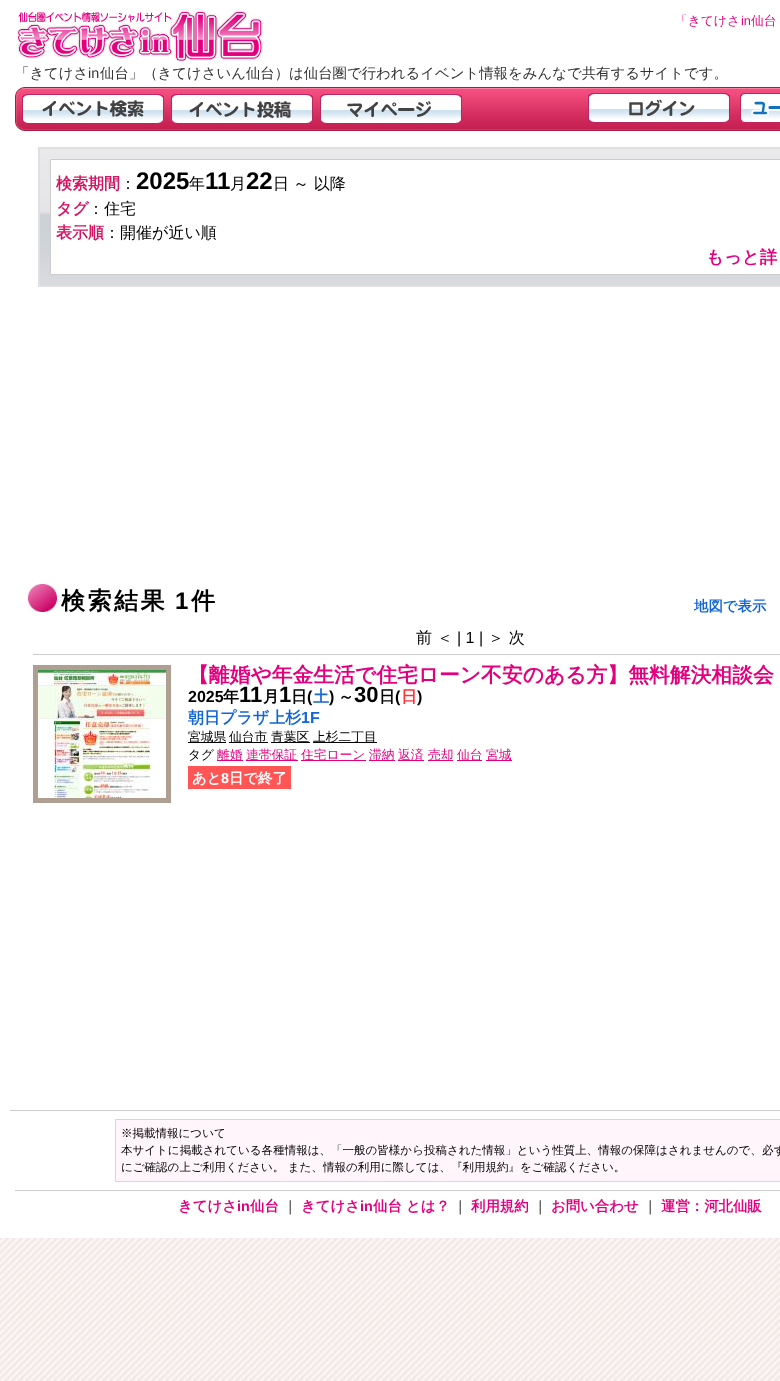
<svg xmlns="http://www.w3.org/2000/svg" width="780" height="1381">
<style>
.a{font:500 12.75px WenQuanYi Zen Hei;fill:#e2007e}
.b{font:12.75px Liberation Sans;fill:#e2007e}
.c{font:500 14.4px WenQuanYi Zen Hei;fill:#333}
.d{font:14.4px Liberation Sans;fill:#333}
.e{font:bold 16px WenQuanYi Zen Hei;fill:#d31661}
.f{font:500 16px WenQuanYi Zen Hei;fill:#000}
.g{font:bold 24px Liberation Sans;fill:#000}
.h{font:bold 17.5px WenQuanYi Zen Hei;fill:#e2007e}
.i{font:bold 24px WenQuanYi Zen Hei;letter-spacing:2.5px;fill:#000}
.j{font:bold 24px Liberation Sans;letter-spacing:2.5px;fill:#000}
.k{font:bold 14.4px WenQuanYi Zen Hei;fill:#1266d6}
.l{font:16px Liberation Sans;fill:#000}
.m{font:bold 20.8px WenQuanYi Zen Hei;fill:#e2007e}
.n{font:bold 16px Liberation Sans;fill:#000}
.o{font:bold 16px WenQuanYi Zen Hei;fill:#000}
.p{font:bold 22px Liberation Sans;fill:#000}
.q{font:bold 16px WenQuanYi Zen Hei;fill:#1266d6}
.r{font:bold 16px WenQuanYi Zen Hei;fill:#f33}
.s{font:bold 16px Liberation Sans;fill:#1266d6}
.t{font:500 12.75px WenQuanYi Zen Hei;fill:#000}
.u{font:bold 14.4px WenQuanYi Zen Hei;fill:#fff}
.v{font:bold 14.4px Liberation Sans;fill:#fff}
.w{font:500 11.52px WenQuanYi Zen Hei;fill:#000}
.x{font:bold 14.4px WenQuanYi Zen Hei;fill:#e2007e}
.y{font:bold 14.4px Liberation Sans;fill:#e2007e}
.z{font:500 14.4px WenQuanYi Zen Hei;fill:#000}
</style>
<rect width="100%" height="100%" fill="#fff"/>
<image href="1.png" x="0" y="1238" width="780" height="143"/>
<image href="2.png" x="17" y="10" width="246" height="51"/>
<image href="3.png" x="15" y="87" width="765" height="44"/>
<image href="4.png" x="22" y="94" width="142" height="30"/>
<image href="5.png" x="171" y="94" width="142" height="30"/>
<image href="6.png" x="320" y="94" width="142" height="30"/>
<image href="7.png" x="588" y="93" width="142" height="30"/>
<image href="8.png" x="740" y="93" width="40" height="30"/>
<image href="9.png" x="40" y="149" width="740" height="136"/>
<path fill="none" stroke="#e0e0e0" stroke-width="2" d="M39 148h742v138H39z"/>
<path fill="#fff" stroke="#ccc" d="M50.5 159.5h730v115H50.5z"/>
<image href="10.png" x="28" y="584" width="29" height="28"/>
<path fill="#ccc" d="M33 654h747v1H33z"/>
<path fill="none" stroke="#ae9f92" stroke-width="5" d="M35.5 667.5h133v133H35.5z"/>
<image href="11.png" x="38" y="670" width="128" height="128"/>
<path fill="#000" d="M188 742h38v1H188z"/>
<path fill="#000" d="M229 742h39v1H229z"/>
<path fill="#000" d="M271 742h39v1H271z"/>
<path fill="#000" d="M313 742h64v1H313z"/>
<path fill="#e2007e" d="M217 760h26v1H217z"/>
<path fill="#e2007e" d="M246 760h52v1H246z"/>
<path fill="#e2007e" d="M301 760h65v1H301z"/>
<path fill="#e2007e" d="M369 760h26v1H369z"/>
<path fill="#e2007e" d="M398 760h26v1H398z"/>
<path fill="#e2007e" d="M428 760h25v1H428z"/>
<path fill="#e2007e" d="M457 760h25v1H457z"/>
<path fill="#e2007e" d="M486 760h26v1H486z"/>
<path fill="#f55" d="M188 766h103v23H188z"/>
<path fill="#ccc" d="M10 1110h770v1H10z"/>
<path fill="#fff5fb" stroke="#fbc2e6" d="M115.5 1119.5h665v62H115.5z"/>
<path fill="#ccc" d="M15 1190h765v1H15z"/>
<text class="a" x="675" y="25">「きてけさ</text>
<text class="b" x="741" y="25">in</text>
<text class="a" x="751" y="25">仙台</text>
<text class="c" x="15" y="78">「きてけさ</text>
<text class="d" x="88" y="78">in</text>
<text class="c" x="100" y="78">仙台」（きてけさいん仙台）は仙台圏で行われるイベント情報をみんなで共有するサイトです。</text>
<text class="e" x="56" y="189">検索期間</text>
<text class="f" x="120" y="189">：</text>
<text class="g" x="136" y="189">2025</text>
<text class="f" x="189" y="189">年</text>
<text class="g" x="205" y="189">11</text>
<text class="f" x="230" y="189">月</text>
<text class="g" x="246" y="189">22</text>
<text class="f" x="273" y="189">日</text>
<text class="f" x="293" y="189">～ 以降</text>
<text class="e" x="56" y="214">タグ</text>
<text class="f" x="88" y="214">：住宅</text>
<text class="e" x="56" y="238">表示順</text>
<text class="f" x="104" y="238">：開催が近い順</text>
<text class="h" x="706" y="263">もっと詳</text>
<text class="i" x="61" y="609">検索結果</text>
<text class="j" x="175" y="609">1</text>
<text class="i" x="191" y="609">件</text>
<text class="k" x="694" y="611">地図で表示</text>
<text class="f" x="416" y="643">前 ＜</text>
<text class="l" x="457" y="643">| 1 |</text>
<text class="f" x="488" y="643">＞ 次</text>
<text class="m" x="188" y="682">【離婚や年金生活で住宅ローン不安のある方】無料解決相談会</text>
<text class="n" x="188" y="702">2025</text>
<text class="o" x="223" y="702">年</text>
<text class="p" x="239" y="702">11</text>
<text class="o" x="263" y="702">月</text>
<text class="p" x="279" y="702">1</text>
<text class="o" x="291" y="702">日</text>
<text class="n" x="307" y="702">(</text>
<text class="q" x="313" y="702">土</text>
<text class="n" x="329" y="702">)</text>
<text class="o" x="338" y="702">～</text>
<text class="p" x="354" y="702">30</text>
<text class="o" x="379" y="702">日</text>
<text class="n" x="395" y="702">(</text>
<text class="r" x="401" y="702">日</text>
<text class="n" x="417" y="702">)</text>
<text class="q" x="188" y="723">朝日プラザ上杉</text>
<text class="s" x="301" y="723">1F</text>
<text class="t" x="188" y="741">宮城県</text>
<text class="t" x="229" y="741">仙台市</text>
<text class="t" x="271" y="741">青葉区</text>
<text class="t" x="313" y="741">上杉二丁目</text>
<text class="t" x="188" y="759">タグ</text>
<text class="a" x="217" y="759">離婚</text>
<text class="a" x="246" y="759">連帯保証</text>
<text class="a" x="301" y="759">住宅ローン</text>
<text class="a" x="369" y="759">滞納</text>
<text class="a" x="398" y="759">返済</text>
<text class="a" x="428" y="759">売却</text>
<text class="a" x="457" y="759">仙台</text>
<text class="a" x="486" y="759">宮城</text>
<text class="u" x="192" y="783">あと</text>
<text class="v" x="221" y="783">8</text>
<text class="u" x="229" y="783">日で終了</text>
<text class="w" x="121" y="1137">※掲載情報について</text>
<text class="w" x="121" y="1154">本サイトに掲載されている各種情報は、「一般の皆様から投稿された情報」という性質上、情報の保障はされませんので、必ず</text>
<text class="w" x="121" y="1171">にご確認の上ご利用ください。 また、情報の利用に際しては、『利用規約』をご確認ください。</text>
<text class="x" x="178" y="1211">きてけさ</text>
<text class="y" x="237" y="1211">in</text>
<text class="x" x="250" y="1211">仙台</text>
<text class="z" x="283" y="1211">｜</text>
<text class="x" x="301" y="1211">きてけさ</text>
<text class="y" x="360" y="1211">in</text>
<text class="x" x="373" y="1211">仙台 とは？</text>
<text class="z" x="453" y="1211">｜</text>
<text class="x" x="471" y="1211">利用規約</text>
<text class="z" x="533" y="1211">｜</text>
<text class="x" x="551" y="1211">お問い合わせ</text>
<text class="z" x="643" y="1211">｜</text>
<text class="x" x="661" y="1211">運営：河北仙販</text>
</svg>
